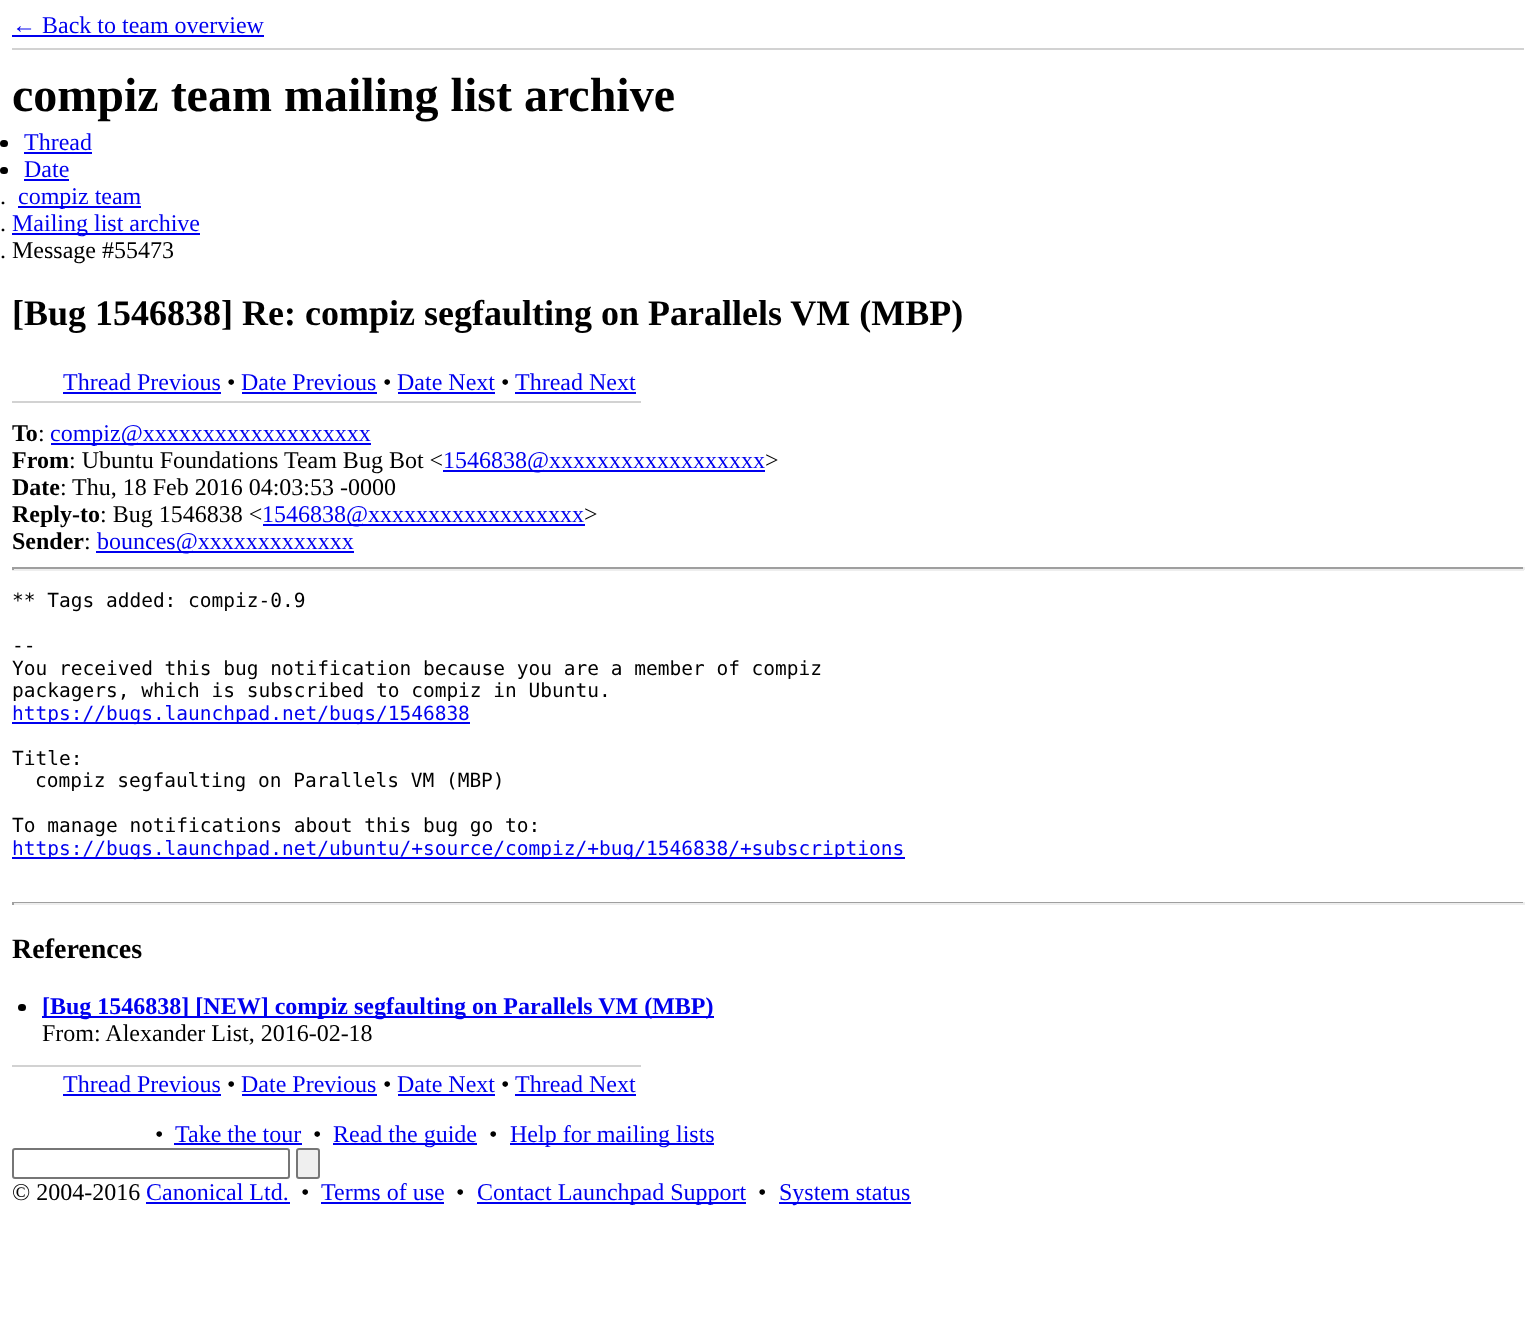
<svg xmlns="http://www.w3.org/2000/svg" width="1535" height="1343">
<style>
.a{font:24px Liberation Serif;fill:#00e}
.b{font:bold 48px Liberation Serif;fill:#000}
.c{font:24px Liberation Serif;fill:#000}
.d{font:bold 36px Liberation Serif;fill:#000}
.e{font:bold 24px Liberation Serif;fill:#000}
.f{font:19.5px DejaVu Sans Mono;fill:#000}
.g{font:19.5px DejaVu Sans Mono;fill:#00e}
.h{font:bold 28px Liberation Serif;fill:#000}
.i{font:bold 24px Liberation Serif;fill:#00e}
</style>
<rect width="100%" height="100%" fill="#fff"/>
<path fill="#d2d2d2" d="M12 48h1512v2H12z"/>
<path fill="#00e" d="M12 35h252v2H12z"/>
<rect fill="#000" y="140" width="8" height="7" rx="3.5"/>
<path fill="#00e" d="M24 152h68v2H24z"/>
<rect fill="#000" y="167" width="8" height="7" rx="3.5"/>
<path fill="#00e" d="M24 179h45v2H24z"/>
<path fill="#00e" d="M18 206h123v2H18z"/>
<path fill="#00e" d="M12 233h188v2H12z"/>
<path fill="#d2d2d2" d="M12 401h629v2H12z"/>
<path fill="#00e" d="M63 392h158v2H63z"/>
<path fill="#00e" d="M242 392h135v2H242z"/>
<path fill="#00e" d="M398 392h97v2H398z"/>
<path fill="#00e" d="M515 392h121v2H515z"/>
<path fill="#00e" d="M51 443h320v2H51z"/>
<path fill="#00e" d="M443 470h322v2H443z"/>
<path fill="#00e" d="M263 524h322v2H263z"/>
<path fill="#00e" d="M96 551h258v2H96z"/>
<path fill="#9f9f9f" d="M12 567h1512v2H12z"/>
<path fill="#eee" d="M1523 567h2v3H1523z"/>
<path fill="#eee" d="M12 569h1512v2H12z"/>
<path fill="#9f9f9f" d="M12 567h2v3H12z"/>
<path fill="#00e" d="M12 722h458v2H12z"/>
<path fill="#00e" d="M12 857h893v2H12z"/>
<path fill="#9f9f9f" d="M12 902h1512v1H12z"/>
<path fill="#eee" d="M1523 902h2v3H1523z"/>
<path fill="#eee" d="M12 903h1512v2H12z"/>
<path fill="#9f9f9f" d="M12 902h2v3H12z"/>
<rect fill="#000" x="18" y="1004" width="8" height="7" rx="3.5"/>
<path fill="#00e" d="M42 1016h672v2H42z"/>
<path fill="#d2d2d2" d="M12 1065h629v2H12z"/>
<path fill="#00e" d="M63 1094h158v2H63z"/>
<path fill="#00e" d="M242 1094h135v2H242z"/>
<path fill="#00e" d="M398 1094h97v2H398z"/>
<path fill="#00e" d="M515 1094h121v2H515z"/>
<path fill="#00e" d="M174 1143h128v2H174z"/>
<path fill="#00e" d="M333 1143h144v2H333z"/>
<path fill="#00e" d="M510 1143h204v2H510z"/>
<rect fill="none" stroke="#767676" stroke-width="2" x="13" y="1149" width="276" height="29" rx="2"/>
<rect fill="#efefef" stroke="#767676" stroke-width="2" x="297" y="1149" width="22" height="29" rx="2"/>
<path fill="#00e" d="M146 1202h144v2H146z"/>
<path fill="#00e" d="M321 1202h123v2H321z"/>
<path fill="#00e" d="M477 1202h269v2H477z"/>
<path fill="#00e" d="M779 1202h132v2H779z"/>
<text class="a" x="12" y="33">← Back to team overview</text>
<text class="b" x="12" y="111">compiz team mailing list archive</text>
<text class="a" x="24" y="150">Thread</text>
<text class="a" x="24" y="177">Date</text>
<text class="c" x="0" y="204">.</text>
<text class="a" x="18" y="204">compiz team</text>
<text class="c" x="0" y="231">.</text>
<text class="a" x="12" y="231">Mailing list archive</text>
<text class="c" x="0" y="258">. Message #55473</text>
<text class="d" x="12" y="325">[Bug 1546838] Re: compiz segfaulting on Parallels VM (MBP)</text>
<text class="a" x="63" y="390">Thread Previous</text>
<text class="c" x="227" y="390">•</text>
<text class="a" x="241" y="390">Date Previous</text>
<text class="c" x="383" y="390">•</text>
<text class="a" x="397" y="390">Date Next</text>
<text class="c" x="501" y="390">•</text>
<text class="a" x="515" y="390">Thread Next</text>
<text class="e" x="12" y="441">To</text>
<text class="c" x="38" y="441">:</text>
<text class="a" x="50" y="441">compiz@xxxxxxxxxxxxxxxxxxx</text>
<text class="e" x="12" y="468">From</text>
<text class="c" x="69" y="468">: Ubuntu Foundations Team Bug Bot &lt;</text>
<text class="a" x="443" y="468">1546838@xxxxxxxxxxxxxxxxxx</text>
<text class="c" x="765" y="468">&gt;</text>
<text class="e" x="12" y="495">Date</text>
<text class="c" x="60" y="495">:</text>
<text class="c" x="72" y="495">Thu, 18 Feb 2016 04:03:53 -0000</text>
<text class="e" x="12" y="522">Reply-to</text>
<text class="c" x="100" y="522">: Bug 1546838 &lt;</text>
<text class="a" x="262" y="522">1546838@xxxxxxxxxxxxxxxxxx</text>
<text class="c" x="584" y="522">&gt;</text>
<text class="e" x="12" y="549">Sender</text>
<text class="c" x="84" y="549">:</text>
<text class="a" x="97" y="549">bounces@xxxxxxxxxxxxx</text>
<text class="f" x="12" y="607">** Tags added: compiz-0.9</text>
<text class="f" x="12" y="652">--</text>
<text class="f" x="12" y="675">You received this bug notification because you are a member of compiz</text>
<text class="f" x="12" y="697">packagers, which is subscribed to compiz in Ubuntu.</text>
<text class="g" x="12" y="720">https://bugs.launchpad.net/bugs/1546838</text>
<text class="f" x="12" y="765">Title:</text>
<text class="f" x="35" y="787">compiz segfaulting on Parallels VM (MBP)</text>
<text class="f" x="12" y="832">To manage notifications about this bug go to:</text>
<text class="g" x="12" y="855">https://bugs.launchpad.net/ubuntu/+source/compiz/+bug/1546838/+subscriptions</text>
<text class="h" x="12" y="958">References</text>
<text class="i" x="42" y="1014">[Bug 1546838] [NEW] compiz segfaulting on Parallels VM (MBP)</text>
<text class="c" x="42" y="1041">From: Alexander List, 2016-02-18</text>
<text class="a" x="63" y="1092">Thread Previous</text>
<text class="c" x="227" y="1092">•</text>
<text class="a" x="241" y="1092">Date Previous</text>
<text class="c" x="383" y="1092">•</text>
<text class="a" x="397" y="1092">Date Next</text>
<text class="c" x="501" y="1092">•</text>
<text class="a" x="515" y="1092">Thread Next</text>
<text class="c" x="155" y="1142">•</text>
<text class="a" x="175" y="1142">Take the tour</text>
<text class="c" x="313" y="1142">•</text>
<text class="a" x="333" y="1142">Read the guide</text>
<text class="c" x="489" y="1142">•</text>
<text class="a" x="510" y="1142">Help for mailing lists</text>
<text class="c" x="12" y="1200">© 2004-2016</text>
<text class="a" x="146" y="1200">Canonical Ltd.</text>
<text class="c" x="301" y="1200">•</text>
<text class="a" x="321" y="1200">Terms of use</text>
<text class="c" x="456" y="1200">•</text>
<text class="a" x="477" y="1200">Contact Launchpad Support</text>
<text class="c" x="758" y="1200">•</text>
<text class="a" x="779" y="1200">System status</text>
</svg>
